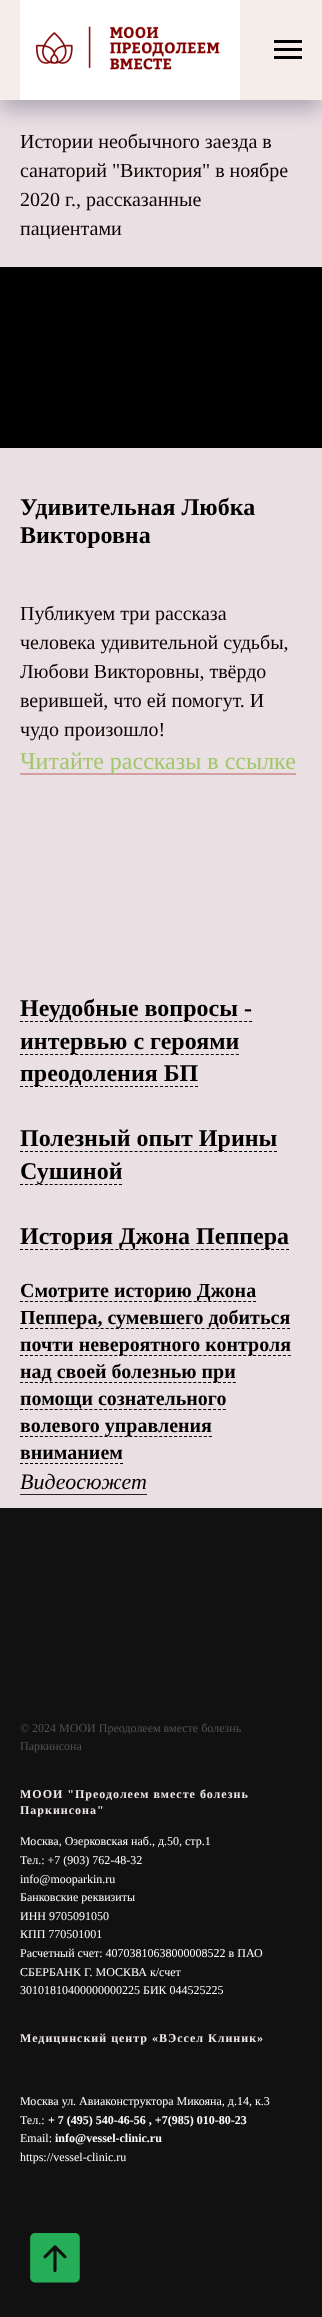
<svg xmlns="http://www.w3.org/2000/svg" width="322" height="2317">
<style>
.a{font:20px Liberation Serif;fill:#0f0101}
.b{font:bold 24px Liberation Serif;fill:#000}
.c{font:24px Liberation Serif;fill:#a1c76b}
.d{font:bold 20px Liberation Serif;fill:#000}
.e{font:italic 22px Liberation Serif;fill:#000}
.f{font:12px Liberation Serif;fill:#525252}
.g{font:bold 12px Liberation Serif;letter-spacing:1px;fill:#f0e7e7}
.h{font:12px Liberation Serif;fill:#fff}
.i{font:bold 12px Liberation Serif;fill:#fff}
</style>
<rect width="100%" height="100%" fill="#eadfe3"/>
<path fill="#000b3040" filter="blur(10px)" d="M0 10h322v100H0z"/>
<path fill="#f5ede9" d="M0 0h322v100H0z"/>
<image href="1.png" x="20" y="0" width="220" height="100"/>
<path fill="#000" d="M274 40h28v3H274z"/>
<path fill="#000" d="M274 48h28v3H274z"/>
<path fill="#000" d="M274 56h28v3H274z"/>
<path fill="#000" d="M0 267h322v181H0z"/>
<path fill="#d2a0a0" d="M20 773h254v2H20z"/>
<path fill="none" stroke="#000" stroke-dasharray="3 1.98" d="M20 1021.5h232"/>
<path fill="none" stroke="#000" stroke-dasharray="3 2.02" d="M20 1054.5h219"/>
<path fill="none" stroke="#000" stroke-dasharray="3 2" d="M20 1086.5h178"/>
<path fill="none" stroke="#000" stroke-dasharray="3 1.98" d="M20 1151.5h257"/>
<path fill="none" stroke="#000" stroke-dasharray="3 1.95" d="M20 1184.5h102"/>
<path fill="none" stroke="#000" stroke-dasharray="3 2.02" d="M20 1249.5h269"/>
<path fill="none" stroke="#000" stroke-dasharray="3 1.96" d="M20 1301.5h236"/>
<path fill="none" stroke="#000" stroke-dasharray="3 2.04" d="M20 1328.5h270"/>
<path fill="none" stroke="#000" stroke-dasharray="3 1.96" d="M20 1355.5h271"/>
<path fill="none" stroke="#000" stroke-dasharray="3 1.95" d="M20 1382.5h216"/>
<path fill="none" stroke="#000" stroke-dasharray="3 1.95" d="M20 1409.5h206"/>
<path fill="none" stroke="#000" stroke-dasharray="3 1.97" d="M20 1436.5h192"/>
<path fill="none" stroke="#000" stroke-dasharray="3 2" d="M20 1463.5h103"/>
<path fill="#2e2020" d="M20 1494h127v1H20z"/>
<path fill="#111" d="M0 1508h322v809H0z"/>
<image href="2.png" x="30" y="2233" width="50" height="50"/>
<text class="a" x="20" y="148">Истории необычного заезда в</text>
<text class="a" x="20" y="177">санаторий "Виктория" в ноябре</text>
<text class="a" x="20" y="206">2020 г., рассказанные</text>
<text class="a" x="20" y="235">пациентами</text>
<text class="b" x="20" y="515">Удивительная Любка</text>
<text class="b" x="20" y="543">Викторовна</text>
<text class="a" x="20" y="620">Публикуем три рассказа</text>
<text class="a" x="20" y="649">человека удивительной судьбы,</text>
<text class="a" x="20" y="678">Любови Викторовны, твёрдо</text>
<text class="a" x="20" y="707">верившей, что ей помогут. И</text>
<text class="a" x="20" y="736">чудо произошло!</text>
<text class="c" x="20" y="769">Читайте рассказы в ссылке</text>
<path fill="#d2a0a0" d="M274 773h22v2H274z"/>
<text class="b" x="20" y="1016">Неудобные вопросы -</text>
<text class="b" x="20" y="1049">интервью с героями</text>
<text class="b" x="20" y="1081">преодоления БП</text>
<text class="b" x="20" y="1146">Полезный опыт Ирины</text>
<text class="b" x="20" y="1179">Сушиной</text>
<text class="b" x="20" y="1244">История Джона Пеппера</text>
<text class="d" x="20" y="1297">Смотрите историю Джона</text>
<text class="d" x="20" y="1324">Пеппера, сумевшего добиться</text>
<text class="d" x="20" y="1351">почти невероятного контроля</text>
<text class="d" x="20" y="1378">над своей болезнью при</text>
<text class="d" x="20" y="1405">помощи сознательного</text>
<text class="d" x="20" y="1432">волевого управления</text>
<text class="d" x="20" y="1459">вниманием</text>
<text class="e" x="20" y="1489">Видеосюжет</text>
<text class="f" x="20" y="1732">© 2024 МООИ Преодолеем вместе болезнь</text>
<text class="f" x="20" y="1750">Паркинсона</text>
<text class="g" x="20" y="1798">МООИ "Преодолеем вместе болезнь</text>
<text class="g" x="20" y="1814">Паркинсона"</text>
<text class="h" x="20" y="1845">Москва, Озерковская наб., д.50, стр.1</text>
<text class="h" x="20" y="1864">Тел.: +7 (903) 762-48-32</text>
<text class="h" x="20" y="1883">info@mooparkin.ru</text>
<text class="h" x="20" y="1901">Банковские реквизиты</text>
<text class="h" x="20" y="1920">ИНН 9705091050</text>
<text class="h" x="20" y="1938">КПП 770501001</text>
<text class="h" x="20" y="1957">Расчетный счет: 40703810638000008522 в ПАО</text>
<text class="h" x="20" y="1976">СБЕРБАНК Г. МОСКВА к/счет</text>
<text class="h" x="20" y="1994">30101810400000000225 БИК 044525225</text>
<text class="g" x="20" y="2042">Медицинский центр «ВЭссел Клиник»</text>
<text class="h" x="20" y="2105">Москва ул. Авиаконструктора Микояна, д.14, к.3</text>
<text class="h" x="20" y="2124">Тел.:</text>
<text class="i" x="48" y="2124">+ 7 (495) 540-46-56 , +7(985) 010-80-23</text>
<text class="h" x="20" y="2142">Email:</text>
<text class="i" x="55" y="2142">info@vessel-clinic.ru</text>
<text class="h" x="20" y="2161">https://vessel-clinic.ru</text>
</svg>
